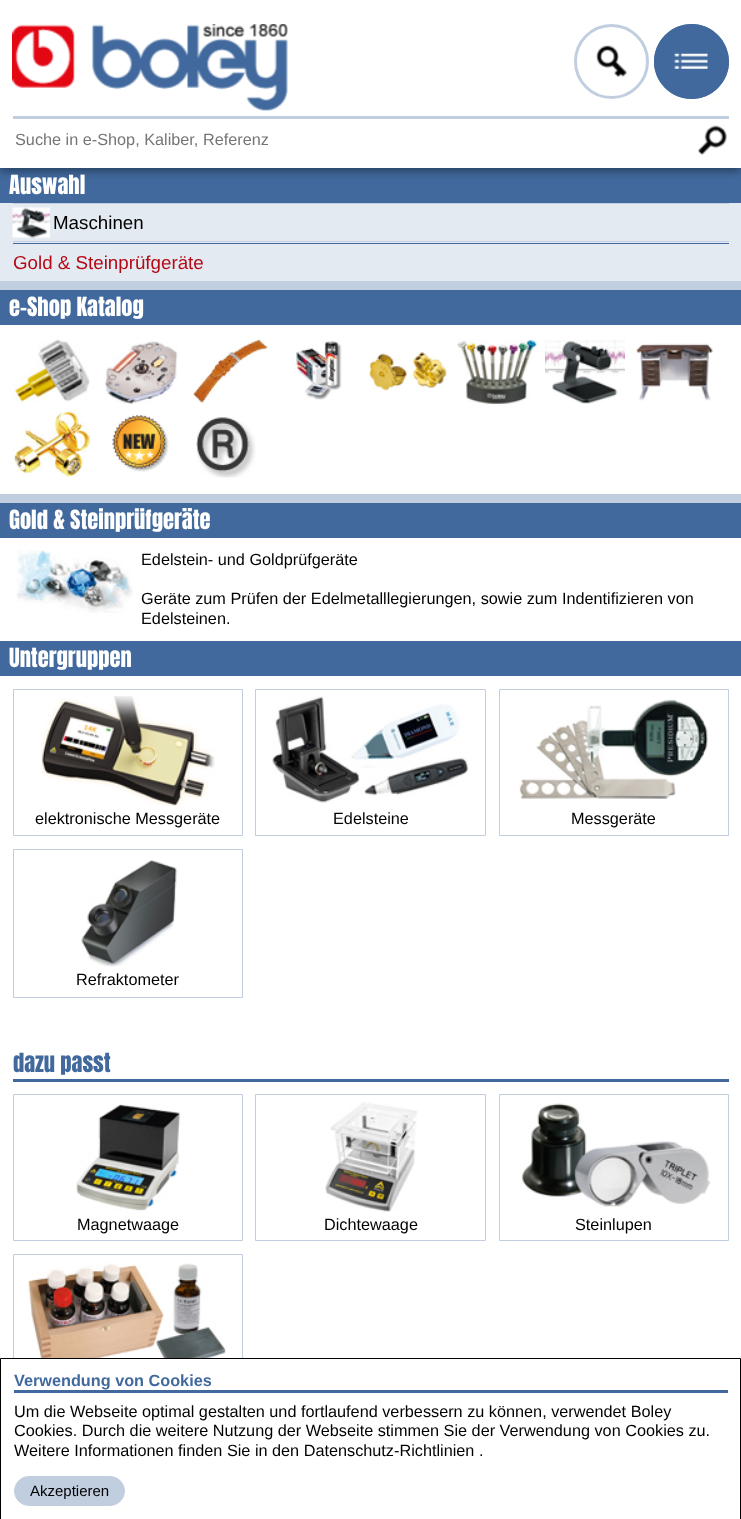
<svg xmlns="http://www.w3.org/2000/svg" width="741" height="1519">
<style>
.a{font:16.25px Liberation Sans;fill:#757575}
.b{font:22.5px Anton;fill:#fff}
.c{font:18.75px Liberation Sans;fill:#000}
.d{font:18.75px Liberation Sans;fill:#b50915}
.e{font:16.25px Liberation Sans;fill:#000}
.f{font:22.5px Anton;fill:#41699d}
.g{font:bold 16.25px Liberation Sans;fill:#41699d}
.h{font:15px Liberation Sans;fill:#000}
</style>
<rect width="100%" height="100%" fill="#c1cee0"/>
<path fill="#41699d" d="M0 168h741v35H0z"/>
<path fill="#00000066" filter="blur(4px)" d="M0 4h741v167H0z"/>
<path fill="#fff" d="M0 0h741v168H0z"/>
<image href="1.png" x="12" y="24" width="276" height="87"/>
<image href="2.png" x="595" y="45" width="32" height="32"/>
<circle fill="none" stroke="#c1cee0" stroke-width="3" cx="611.5" cy="61.5" r="36"/>
<circle fill="#41699d" cx="691.5" cy="61.5" r="37.5"/>
<image href="3.png" x="674" y="53" width="34" height="16"/>
<path fill="#41699d" fill-rule="evenodd" d="M692 24c20 0 37 17 37 38c0 20-17 37-37 37c-21 0-38-17-38-37c0-21 17-38 38-38zm0 3c-20 0-35 15-35 35c0 19 15 34 35 34c19 0 34-15 34-34c0-20-15-35-34-35z"/>
<path fill="#c1cee0" d="M13 116h716v3H13z"/>
<image href="4.png" x="697" y="125" width="30" height="30"/>
<path fill="#e4eaf2" d="M0 203h741v78H0z"/>
<path fill="#c1cee0" d="M13 203h716v1H13z"/>
<image href="5.png" x="12" y="207" width="38" height="31"/>
<path fill="#c1cee0" d="M13 241h716v1H13z"/>
<path fill="#41699d" d="M13 243h716v1H13z"/>
<path fill="#fff" d="M0 325h741v169H0z"/>
<path fill="#41699d" d="M0 290h741v35H0z"/>
<image href="6.png" x="12" y="339" width="78" height="63"/>
<image href="7.png" x="105" y="341" width="73" height="63"/>
<image href="8.png" x="193" y="339" width="76" height="64"/>
<image href="9.png" x="296" y="341" width="46" height="59"/>
<image href="10.png" x="368" y="352" width="79" height="39"/>
<image href="11.png" x="457" y="339" width="80" height="65"/>
<image href="12.png" x="545" y="340" width="80" height="64"/>
<image href="13.png" x="636" y="343" width="77" height="58"/>
<image href="14.png" x="12" y="410" width="80" height="67"/>
<image href="15.png" x="112" y="414" width="57" height="58"/>
<image href="16.png" x="196" y="417" width="60" height="61"/>
<path fill="#fff" d="M0 538h741v820H0z"/>
<path fill="#41699d" d="M0 503h741v35H0z"/>
<image href="17.png" x="16" y="550" width="117" height="63"/>
<path fill="#41699d" d="M0 641h741v35H0z"/>
<path fill="none" stroke="#c1cee0" d="M13.5 689.5h229v146H13.5z"/>
<image href="18.png" x="41" y="696" width="174" height="110"/>
<path fill="none" stroke="#c1cee0" d="M255.5 689.5h230v146H255.5z"/>
<image href="19.png" x="272" y="696" width="197" height="107"/>
<path fill="none" stroke="#c1cee0" d="M499.5 689.5h229v146H499.5z"/>
<image href="20.png" x="519" y="699" width="189" height="100"/>
<path fill="none" stroke="#c1cee0" d="M13.5 849.5h229v148H13.5z"/>
<image href="21.png" x="81" y="860" width="96" height="107"/>
<path fill="#41699d" d="M13 1079h716v3H13z"/>
<path fill="none" stroke="#c1cee0" d="M13.5 1094.5h229v146H13.5z"/>
<image href="22.png" x="76" y="1104" width="105" height="107"/>
<path fill="none" stroke="#c1cee0" d="M255.5 1094.5h230v146H255.5z"/>
<image href="23.png" x="325" y="1102" width="93" height="110"/>
<path fill="none" stroke="#c1cee0" d="M499.5 1094.5h229v146H499.5z"/>
<image href="24.png" x="521" y="1103" width="190" height="104"/>
<path fill="none" stroke="#c1cee0" d="M13.5 1254.5h229v148H13.5z"/>
<image href="25.png" x="28" y="1263" width="198" height="95"/>
<path fill="#fff" stroke="#000" d="M0.5 1358.5h740v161H0.5z"/>
<path fill="#41699d" d="M14 1390h714v3H14z"/>
<rect fill="#c1cee0" stroke="#c1cee0" x="14.5" y="1476.5" width="110" height="29" rx="14.5"/>
<text class="a" x="15" y="145">Suche in e-Shop, Kaliber, Referenz</text>
<text class="b" x="9" y="194">Auswahl</text>
<text class="c" x="53" y="229">Maschinen</text>
<text class="d" x="13" y="269">Gold &amp; Steinprüfgeräte</text>
<text class="b" x="9" y="316">e-Shop Katalog</text>
<text class="b" x="9" y="529">Gold &amp; Steinprüfgeräte</text>
<text class="e" x="141" y="565">Edelstein- und Goldprüfgeräte</text>
<text class="e" x="141" y="604">Geräte zum Prüfen der Edelmetalllegierungen, sowie zum Indentifizieren von</text>
<text class="e" x="141" y="624">Edelsteinen.</text>
<text class="b" x="9" y="667">Untergruppen</text>
<text class="e" x="35" y="824">elektronische Messgeräte</text>
<text class="e" x="333" y="824">Edelsteine</text>
<text class="e" x="571" y="824">Messgeräte</text>
<text class="e" x="76" y="985">Refraktometer</text>
<text class="f" x="13" y="1072">dazu passt</text>
<text class="e" x="77" y="1230">Magnetwaage</text>
<text class="e" x="324" y="1230">Dichtewaage</text>
<text class="e" x="575" y="1230">Steinlupen</text>
<text class="g" x="14" y="1386">Verwendung von Cookies</text>
<text class="e" x="14" y="1417">Um die Webseite optimal gestalten und fortlaufend verbessern zu können, verwendet Boley</text>
<text class="e" x="14" y="1436">Cookies. Durch die weitere Nutzung der Webseite stimmen Sie der Verwendung von Cookies zu.</text>
<text class="e" x="14" y="1456">Weitere Informationen finden Sie in den Datenschutz-Richtlinien .</text>
<text class="h" x="30" y="1496">Akzeptieren</text>
</svg>
